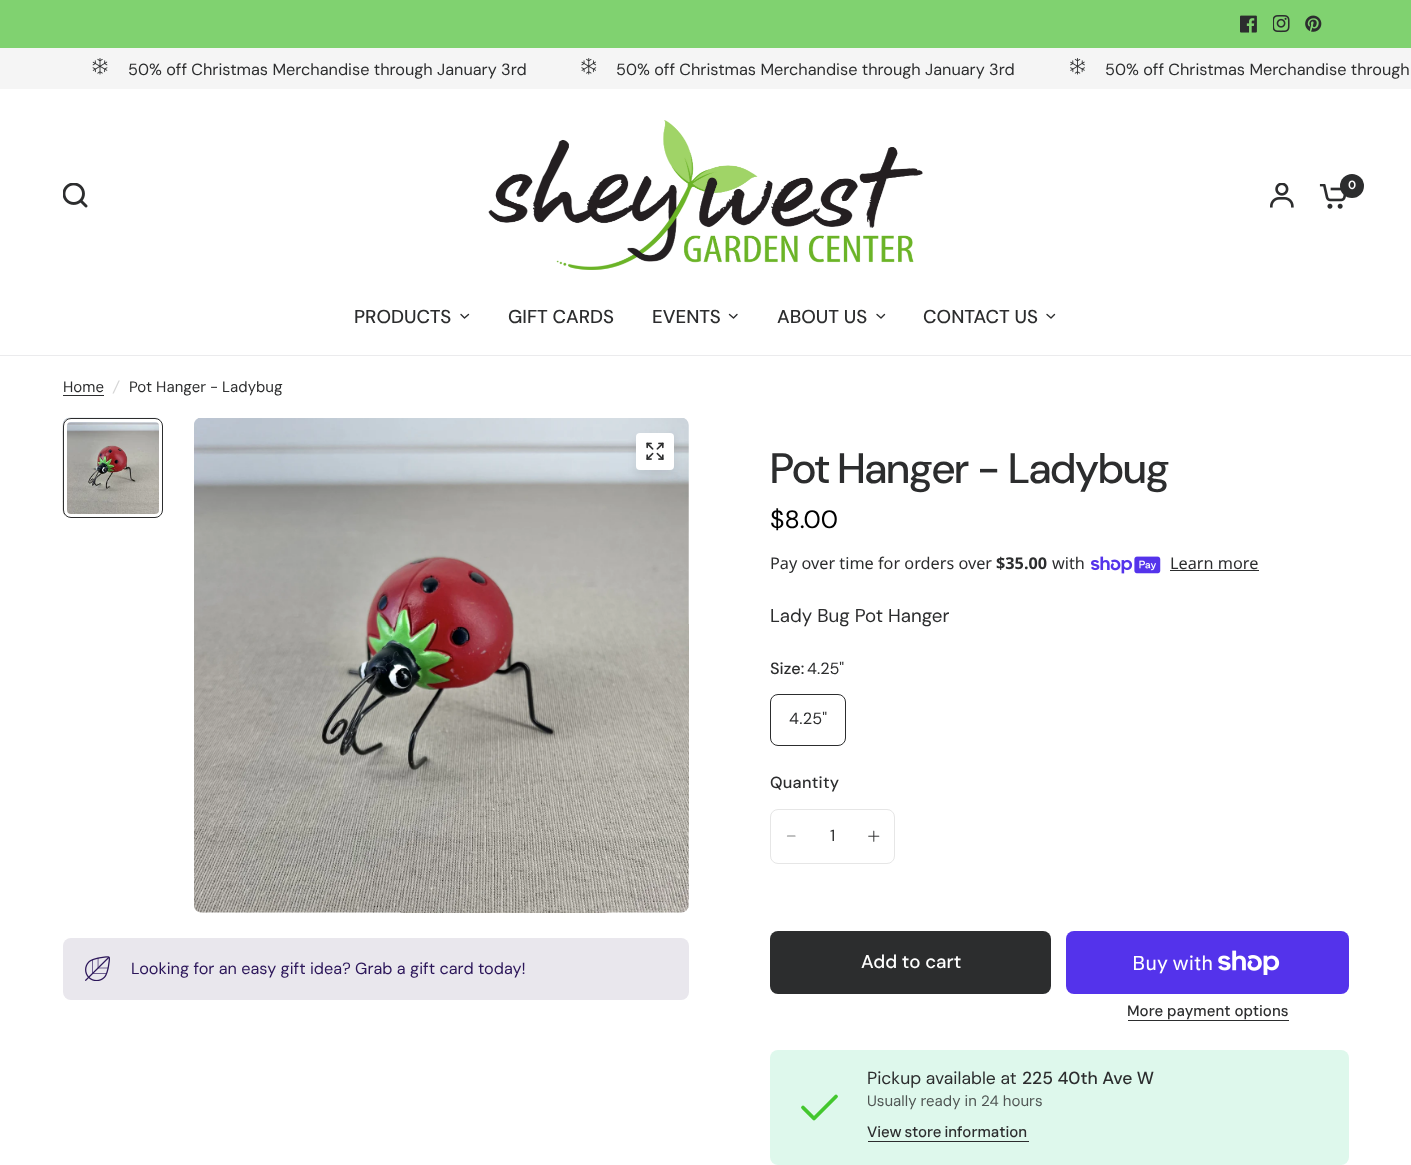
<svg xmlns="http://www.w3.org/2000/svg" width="1411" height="1165">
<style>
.a{font:16.25px 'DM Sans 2';fill:#2c2d2e}
.b{font:600 12px DM Sans;fill:#fff}
.c{font:500 18.75px 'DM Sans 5';fill:#2c2d2e}
.d{font:15px 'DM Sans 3';fill:#2c2d2e}
.e{font:italic 15px DM Sans;fill:#d5d5d5}
.f{font:16.25px 'DM Sans 2';fill:#2b1559}
.g{font:500 42.5px DM Sans;letter-spacing:-0.8px;fill:#2c2d2e}
.h{font:25px DM Sans;fill:#000}
.i{font:16.25px Noto Sans;fill:#2c2d2e}
.j{font:bold 16.25px Noto Sans;fill:#2c2d2e}
.k{font:18.75px 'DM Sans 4';fill:#2c2d2e}
.l{font:500 16.25px 'DM Sans 2';fill:#2c2d2e}
.m{font:16.25px 'DM Sans 2';letter-spacing:0.25px;fill:#2c2d2e}
.n{font:500 16.25px 'DM Sans 2';letter-spacing:0.25px;fill:#2c2d2e}
.o{font:500 18.75px 'DM Sans 5';fill:#fff}
.p{font:20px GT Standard;fill:#fff}
.q{font:500 15px 'DM Sans 3';fill:#2c2d2e}
.r{font:17.5px 'DM Sans 5';fill:#2c2d2e}
.s{font:500 17.5px 'DM Sans 4';fill:#2c2d2e}
.t{font:15px 'DM Sans 3';fill:#505654}
</style>
<rect width="100%" height="100%" fill="#fff"/>
<path fill="#80d270" d="M0 0h1411v48H0z"/>
<image href="1.png" x="1240" y="15" width="17" height="18"/>
<image href="2.png" x="1273" y="15" width="17" height="18"/>
<image href="3.png" x="1305" y="15" width="17" height="17"/>
<path fill="#f5f5f5" d="M0 48h1411v41H0z"/>
<image href="4.png" x="92" y="58" width="16" height="17"/>
<image href="5.png" x="581" y="58" width="16" height="17"/>
<image href="6.png" x="1070" y="58" width="15" height="17"/>
<image href="7.png" x="63" y="183" width="25" height="25"/>
<image href="8.png" x="488" y="120" width="435" height="150"/>
<image href="9.png" x="1270" y="183" width="24" height="25"/>
<image href="10.png" x="1319" y="184" width="27" height="25"/>
<circle fill="#2c2d2e" cx="1352" cy="186" r="12"/>
<path fill="none" stroke="#2c2d2e" stroke-width="1.4" stroke-linecap="round" stroke-linejoin="round" d="M468.5 314.5l-4 3.5l-3.5-3.5"/>
<path fill="none" stroke="#2c2d2e" stroke-width="1.4" stroke-linecap="round" stroke-linejoin="round" d="M737 314.5l-3.5 3.5l-4-3.5"/>
<path fill="none" stroke="#2c2d2e" stroke-width="1.4" stroke-linecap="round" stroke-linejoin="round" d="M884.5 314.5l-3.5 3.5l-4-3.5"/>
<path fill="none" stroke="#2c2d2e" stroke-width="1.4" stroke-linecap="round" stroke-linejoin="round" d="M1054.5 314.5l-3.5 3.5l-4-3.5"/>
<path fill="#ebebed" d="M0 355h1411v1H0z"/>
<path fill="#2c2d2e" d="M63 395h41v1H63z"/>
<image href="11.png" x="62" y="417" width="101" height="101"/>
<rect fill="none" stroke="#fff" stroke-width="4" x="65" y="420" width="96" height="96" rx="6"/>
<rect fill="none" stroke="#2c2d2e" x="63.5" y="418.5" width="99" height="99" rx="7.5"/>
<image href="12.png" x="194" y="418" width="495" height="495"/>
<rect fill="#00000014" filter="blur(4px)" x="636" y="438" width="38" height="37" rx="4"/>
<rect fill="#fff" x="636" y="433" width="38" height="37" rx="4"/>
<image href="13.png" x="646" y="442" width="18" height="18"/>
<rect fill="#e9e7ed" x="63" y="938" width="626" height="62" rx="8"/>
<image href="14.png" x="85" y="956" width="25" height="25"/>
<image href="15.png" x="1091" y="556" width="70" height="18"/>
<path fill="#2c2d2e" d="M1170 570h89v1H1170z"/>
<rect fill="none" stroke="#2c2d2e" x="770.5" y="694.5" width="75" height="51" rx="7.5"/>
<rect fill="none" stroke="#e6e6e6" x="770.5" y="809.5" width="124" height="54" rx="7.5"/>
<path fill="none" stroke="#808182" stroke-width="1.2" stroke-linecap="round" stroke-linejoin="round" d="M787.5 836h7.5"/>
<image href="16.png" x="868" y="830" width="12" height="12"/>
<rect fill="#2c2d2e" x="770" y="931" width="281" height="63" rx="8"/>
<rect fill="#5433eb" x="1066" y="931" width="283" height="63" rx="8"/>
<image href="17.png" x="1218" y="950" width="62" height="25"/>
<path fill="#2c2d2e" d="M1128 1020h161v1H1128z"/>
<rect fill="#def8ec" x="770" y="1050" width="579" height="115" rx="8"/>
<path fill="none" stroke="#43c72e" stroke-width="3.8" stroke-linecap="round" stroke-linejoin="round" d="M836 1096.5l-22 22l-11-11"/>
<path fill="#2c2d2e" d="M868 1141h161v1H868z"/>
<text class="a" x="128" y="75">50% off Christmas Merchandise through January 3rd</text>
<text class="a" x="616" y="75">50% off Christmas Merchandise through January 3rd</text>
<text class="a" x="1105" y="75">50% off Christmas Merchandise through</text>
<text class="b" x="1348" y="189">0</text>
<text class="c" x="354" y="323">PRODUCTS</text>
<text class="c" x="508" y="323">GIFT CARDS</text>
<text class="c" x="652" y="323">EVENTS</text>
<text class="c" x="777" y="323">ABOUT US</text>
<text class="c" x="923" y="323">CONTACT US</text>
<text class="d" x="63" y="392">Home</text>
<text class="e" x="113" y="392">/</text>
<text class="d" x="129" y="392">Pot Hanger - Ladybug</text>
<text class="f" x="131" y="974">Looking for an easy gift idea? Grab a gift card today!</text>
<text class="g" x="770" y="483">Pot Hanger - Ladybug</text>
<text class="h" x="770" y="528">$8.00</text>
<text class="i" x="770" y="569">Pay over time for orders over</text>
<text class="j" x="996" y="569">$35.00</text>
<text class="i" x="1052" y="569">with</text>
<text class="i" x="1170" y="569">Learn more</text>
<text class="k" x="770" y="622">Lady Bug Pot Hanger</text>
<text class="l" x="770" y="674">Size:</text>
<text class="a" x="807" y="674">4.25"</text>
<text class="m" x="789" y="724">4.25"</text>
<text class="n" x="770" y="788">Quantity</text>
<text class="a" x="830" y="841">1</text>
<text class="o" x="861" y="968">Add to cart</text>
<text class="p" x="1132" y="970">Buy with</text>
<text class="q" x="1127" y="1016">More payment options</text>
<text class="r" x="867" y="1084">Pickup available at</text>
<text class="s" x="1022" y="1084">225 40th Ave W</text>
<text class="t" x="867" y="1106">Usually ready in 24 hours</text>
<text class="q" x="867" y="1137" word-spacing="-1">View store information</text>
</svg>
